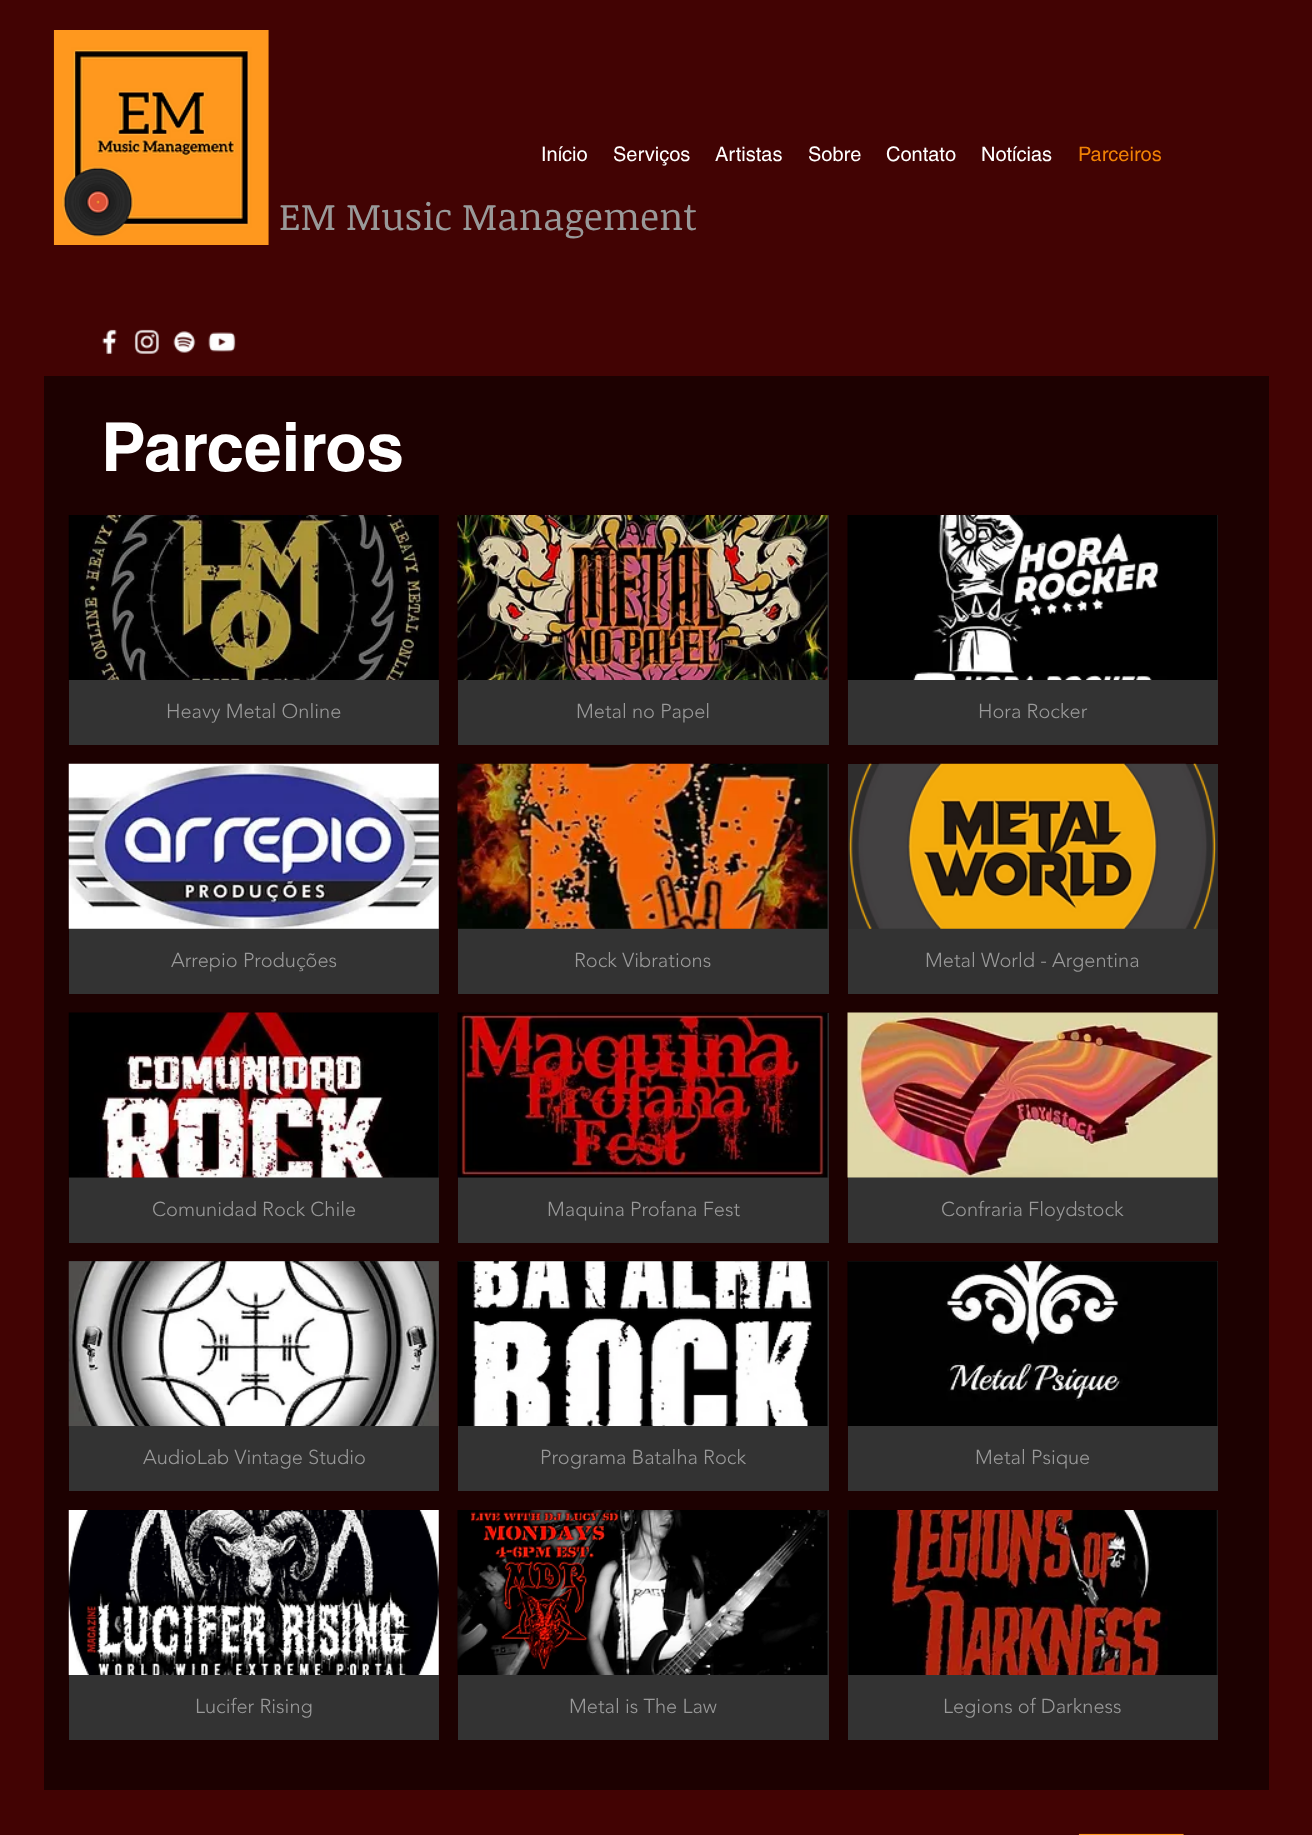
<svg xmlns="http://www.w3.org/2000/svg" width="1312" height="1835">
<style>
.a{font:20px helvetica;fill:#fff}
.b{font:20px helvetica;fill:#f08205}
.c{font:37.5px Noticia Text;fill:#999}
.d{font:bold 67.5px helvetica;fill:#fff}
.e{font:300 20px 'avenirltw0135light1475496';fill:#999}
</style>
<rect width="100%" height="100%" fill="#420303"/>
<image href="1.png" x="53" y="30" width="216" height="215"/>
<image href="2.png" x="102" y="329" width="15" height="25"/>
<image href="3.png" x="134" y="329" width="25" height="25"/>
<image href="4.png" x="173" y="331" width="23" height="22"/>
<image href="5.png" x="208" y="332" width="28" height="20"/>
<path fill="#1d0101" d="M44 376h1225v1414H44z"/>
<image href="6.png" x="68" y="515" width="371" height="165"/>
<path fill="#333" d="M69 680h370v65H69z"/>
<path fill="#2f2e2e" d="M827 515h2v165H827z"/>
<image href="7.png" x="457" y="515" width="371" height="165"/>
<path fill="#333" d="M458 680h371v65H458z"/>
<path fill="#2f2e2e" d="M1217 515h1v165H1217z"/>
<image href="8.png" x="847" y="515" width="371" height="165"/>
<path fill="#333" d="M848 680h370v65H848z"/>
<path fill="#2f2e2e" d="M69 764h370v165H69z"/>
<image href="9.png" x="68" y="763" width="371" height="166"/>
<path fill="#333" d="M69 929h370v65H69z"/>
<path fill="#2f2e2e" d="M458 764h371v165H458z"/>
<image href="10.png" x="457" y="763" width="371" height="166"/>
<path fill="#333" d="M458 929h371v65H458z"/>
<path fill="#2f2e2e" d="M848 764h370v165H848z"/>
<image href="11.png" x="848" y="763" width="369" height="166"/>
<path fill="#333" d="M848 929h370v65H848z"/>
<path fill="#2f2e2e" d="M69 1013h370v165H69z"/>
<image href="12.png" x="68" y="1012" width="371" height="166"/>
<path fill="#333" d="M69 1178h370v65H69z"/>
<path fill="#2f2e2e" d="M458 1013h371v165H458z"/>
<image href="13.png" x="457" y="1012" width="371" height="166"/>
<path fill="#333" d="M458 1178h371v65H458z"/>
<path fill="#2f2e2e" d="M848 1013h370v165H848z"/>
<image href="14.png" x="847" y="1012" width="371" height="166"/>
<path fill="#333" d="M848 1178h370v65H848z"/>
<path fill="#2f2e2e" d="M69 1261h370v165H69z"/>
<image href="15.png" x="68" y="1261" width="371" height="166"/>
<path fill="#333" d="M69 1426h370v65H69z"/>
<path fill="#2f2e2e" d="M458 1261h371v165H458z"/>
<image href="16.png" x="457" y="1261" width="371" height="166"/>
<path fill="#333" d="M458 1426h371v65H458z"/>
<path fill="#2f2e2e" d="M848 1261h370v165H848z"/>
<image href="17.png" x="847" y="1261" width="371" height="166"/>
<path fill="#333" d="M848 1426h370v65H848z"/>
<image href="18.png" x="68" y="1510" width="371" height="165"/>
<path fill="#333" d="M69 1675h370v65H69z"/>
<path fill="#2f2e2e" d="M827 1510h2v165H827z"/>
<image href="19.png" x="457" y="1510" width="371" height="165"/>
<path fill="#333" d="M458 1675h371v65H458z"/>
<path fill="#2f2e2e" d="M1217 1510h1v165H1217z"/>
<image href="20.png" x="847" y="1510" width="371" height="165"/>
<path fill="#333" d="M848 1675h370v65H848z"/>
<image href="21.png" x="1078" y="1833" width="106" height="2"/>
<text class="a" x="541" y="161">Início</text>
<text class="a" x="613" y="161">Serviços</text>
<text class="a" x="715" y="161">Artistas</text>
<text class="a" x="808" y="161">Sobre</text>
<text class="a" x="886" y="161">Contato</text>
<text class="a" x="981" y="161">Notícias</text>
<text class="b" x="1078" y="161">Parceiros</text>
<text class="c" x="279" y="230">EM Music Management</text>
<text class="d" x="101" y="471">Parceiros</text>
<text class="e" x="166" y="718">Heavy Metal Online</text>
<text class="e" x="576" y="718">Metal no Papel</text>
<text class="e" x="978" y="718">Hora Rocker</text>
<text class="e" x="171" y="967">Arrepio Produções</text>
<text class="e" x="574" y="967">Rock Vibrations</text>
<text class="e" x="925" y="967">Metal World - Argentina</text>
<text class="e" x="152" y="1216">Comunidad Rock Chile</text>
<text class="e" x="547" y="1216">Maquina Profana Fest</text>
<text class="e" x="941" y="1216">Confraria Floydstock</text>
<text class="e" x="143" y="1464">AudioLab Vintage Studio</text>
<text class="e" x="540" y="1464">Programa Batalha Rock</text>
<text class="e" x="975" y="1464">Metal Psique</text>
<text class="e" x="195" y="1713">Lucifer Rising</text>
<text class="e" x="569" y="1713">Metal is The Law</text>
<text class="e" x="943" y="1713">Legions of Darkness</text>
</svg>
